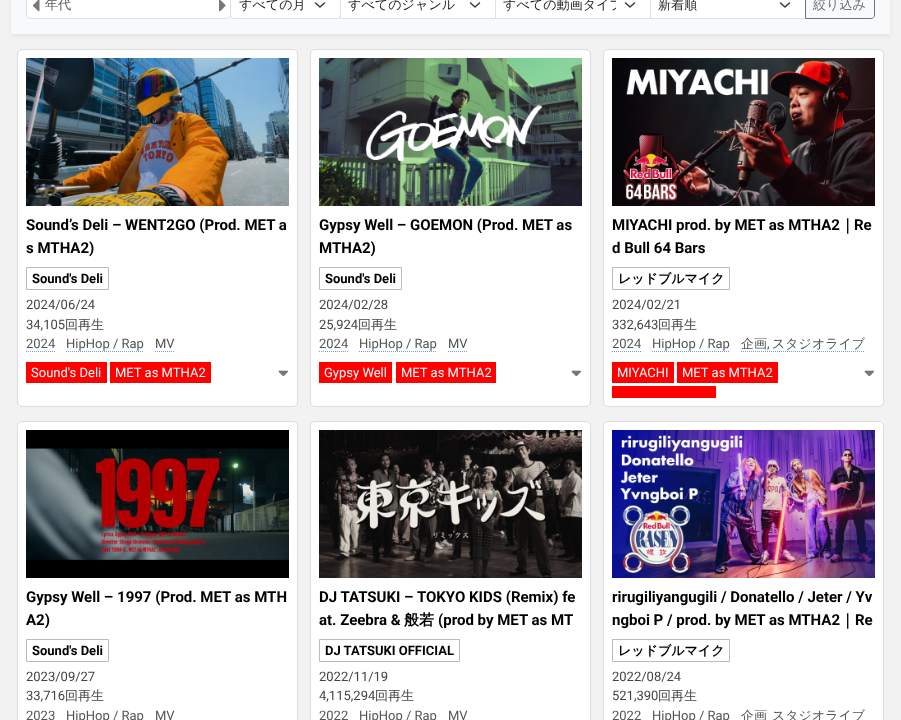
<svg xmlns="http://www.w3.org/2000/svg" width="901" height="720">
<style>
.a{font:500 13.1px WenQuanYi Zen Hei;fill:#595c5f}
.b{font:500 13.1px WenQuanYi Zen Hei;fill:#212529}
.c{font:500 13.1px WenQuanYi Zen Hei;fill:#6c757d}
.d{font:bold 15px Roboto;fill:#000}
.e{font:bold 13px Roboto;fill:#000}
.f{font:13px Roboto;fill:#444}
.g{font:500 13px WenQuanYi Zen Hei;fill:#444}
.h{font:13px Roboto;fill:#555}
.i{font:13px Roboto;fill:#fff}
.j{font:bold 15px WenQuanYi Zen Hei;fill:#000}
.k{font:bold 13px WenQuanYi Zen Hei;fill:#000}
.l{font:500 13px WenQuanYi Zen Hei;fill:#555}
</style>
<defs>
<clipPath id="clip1"><path d="M503 0h113v15H503z"/></clipPath>
</defs>
<rect width="100%" height="100%" fill="#f2f2f2"/>
<path fill="#21252912" filter="blur(2px)" d="M11 -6h879v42H11z"/>
<path fill="#f8f9fa" d="M11 0h879v34H11z"/>
<rect fill="#fff" x="27" y="-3" width="203" height="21" rx="3"/>
<rect fill="#fff" x="230" y="-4" width="111" height="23" rx="4"/>
<path fill="none" stroke="#343a40" stroke-width="1.5" stroke-linecap="round" stroke-linejoin="round" d="M315.5 3l4.5 4l4.5-4"/>
<rect fill="none" stroke="#dee2e6" x="230.5" y="-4.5" width="110" height="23" rx="3.5"/>
<rect fill="none" stroke="#dee2e6" x="26.5" y="-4.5" width="204" height="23" rx="3.5"/>
<image href="1.png" x="33" y="0" width="7" height="12"/>
<image href="2.png" x="219" y="0" width="7" height="12"/>
<path fill="#fff" d="M341 0h154v18H341z"/>
<path fill="none" stroke="#343a40" stroke-width="1.5" stroke-linecap="round" stroke-linejoin="round" d="M470.5 3l4.5 4l4.5-4"/>
<path fill="none" stroke="#dee2e6" d="M340.5 -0.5h155v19H340.5z"/>
<path fill="#fff" d="M496 0h154v18H496z"/>
<path fill="none" stroke="#343a40" stroke-width="1.5" stroke-linecap="round" stroke-linejoin="round" d="M625.5 3l4.5 4l4.5-4"/>
<path fill="none" stroke="#dee2e6" d="M495.5 -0.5h155v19H495.5z"/>
<path fill="#fff" d="M651 0h154v18H651z"/>
<path fill="none" stroke="#343a40" stroke-width="1.5" stroke-linecap="round" stroke-linejoin="round" d="M780.5 3l4.5 4l4.5-4"/>
<path fill="none" stroke="#dee2e6" d="M650.5 -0.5h155v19H650.5z"/>
<path fill="none" stroke="#6c757d" d="M805.5-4.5h65.5c2 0 3.5 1.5 3.5 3.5v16c0 2-1.5 3.5-3.5 3.5h-65.5z"/>
<rect fill="#fff" stroke="#ddd" x="17.5" y="49.5" width="280" height="357" rx="4.5"/>
<image href="3.png" x="26" y="58" width="263" height="148"/>
<path fill="none" stroke="#bbb" d="M26.5 267.5h82v22H26.5z"/>
<path fill="none" stroke="#79e" stroke-dasharray="1 1" d="M26 351.5h29"/>
<path fill="none" stroke="#79e" stroke-dasharray="1 1" d="M66 351.5h78"/>
<path fill="none" stroke="#79e" stroke-dasharray="1 1" d="M155 351.5h20"/>
<path fill="#f00" d="M26 362h81v21H26z"/>
<path fill="#f00" d="M110 362h101v21H110z"/>
<image href="4.png" x="278" y="370" width="10" height="7"/>
<rect fill="#fff" stroke="#ddd" x="310.5" y="49.5" width="280" height="357" rx="4.5"/>
<image href="5.png" x="319" y="58" width="263" height="148"/>
<path fill="none" stroke="#bbb" d="M319.5 267.5h82v22H319.5z"/>
<path fill="none" stroke="#79e" stroke-dasharray="1 1" d="M319 351.5h29"/>
<path fill="none" stroke="#79e" stroke-dasharray="1 1" d="M359 351.5h78"/>
<path fill="none" stroke="#79e" stroke-dasharray="1 1" d="M448 351.5h19"/>
<path fill="#f00" d="M319 362h73v21H319z"/>
<path fill="#f00" d="M396 362h100v21H396z"/>
<image href="4.png" x="571" y="370" width="10" height="7"/>
<rect fill="#fff" stroke="#ddd" x="603.5" y="49.5" width="280" height="357" rx="4.5"/>
<image href="6.png" x="612" y="58" width="263" height="148"/>
<path fill="none" stroke="#bbb" d="M612.5 267.5h117v22H612.5z"/>
<path fill="none" stroke="#79e" stroke-dasharray="1 1" d="M612 351.5h29"/>
<path fill="none" stroke="#79e" stroke-dasharray="1 1" d="M652 351.5h78"/>
<path fill="none" stroke="#79e" stroke-dasharray="1 1" d="M741 351.5h124"/>
<path fill="#f00" d="M612 362h62v21H612z"/>
<path fill="#f00" d="M677 362h101v21H677z"/>
<path fill="#f00" d="M612 386h104v12H612z"/>
<image href="4.png" x="864" y="370" width="10" height="7"/>
<rect fill="#fff" stroke="#ddd" x="17.5" y="421.5" width="280" height="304" rx="4.5"/>
<image href="7.png" x="26" y="430" width="263" height="148"/>
<path fill="none" stroke="#bbb" d="M26.5 639.5h82v22H26.5z"/>
<rect fill="#fff" stroke="#ddd" x="310.5" y="421.5" width="280" height="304" rx="4.5"/>
<image href="8.png" x="319" y="430" width="263" height="148"/>
<path fill="none" stroke="#bbb" d="M319.5 639.5h140v22H319.5z"/>
<rect fill="#fff" stroke="#ddd" x="603.5" y="421.5" width="280" height="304" rx="4.5"/>
<image href="9.png" x="612" y="430" width="263" height="148"/>
<path fill="none" stroke="#bbb" d="M612.5 639.5h117v22H612.5z"/>
<text class="a" x="45" y="9">年代</text>
<text class="b" x="239" y="9">すべての月</text>
<text class="b" x="348" y="9">すべてのジャンル</text>
<g clip-path="url(#clip1)">
<text class="b" x="503" y="9">すべての動画タイプ</text>
</g>
<text class="b" x="658" y="9">新着順</text>
<text class="c" x="813" y="9">絞り込み</text>
<text class="d" x="26" y="230">Sound’s Deli – WENT2GO (Prod. MET a</text>
<text class="d" x="26" y="253">s MTHA2)</text>
<text class="e" x="32" y="283">Sound's Deli</text>
<text class="f" x="26" y="309">2024/06/24</text>
<text class="f" x="26" y="329">34,105</text>
<text class="g" x="65" y="329">回再生</text>
<text class="h" x="26" y="348">2024</text>
<text class="h" x="66" y="348">HipHop / Rap</text>
<text class="h" x="155" y="348">MV</text>
<text class="i" x="31" y="377">Sound's Deli</text>
<text class="i" x="115" y="377">MET as MTHA2</text>
<text class="d" x="319" y="230">Gypsy Well – GOEMON (Prod. MET as</text>
<text class="d" x="319" y="253">MTHA2)</text>
<text class="e" x="325" y="283">Sound's Deli</text>
<text class="f" x="319" y="309">2024/02/28</text>
<text class="f" x="319" y="329">25,924</text>
<text class="g" x="358" y="329">回再生</text>
<text class="h" x="319" y="348">2024</text>
<text class="h" x="359" y="348">HipHop / Rap</text>
<text class="h" x="448" y="348">MV</text>
<text class="i" x="324" y="377">Gypsy Well</text>
<text class="i" x="401" y="377">MET as MTHA2</text>
<text class="d" x="612" y="230">MIYACHI prod. by MET as MTHA2</text>
<text class="j" x="840" y="230">｜</text>
<text class="d" x="854" y="230">Re</text>
<text class="d" x="612" y="253">d Bull 64 Bars</text>
<text class="k" x="618" y="283">レッドブルマイク</text>
<text class="f" x="612" y="309">2024/02/21</text>
<text class="f" x="612" y="329">332,643</text>
<text class="g" x="658" y="329">回再生</text>
<text class="h" x="612" y="348">2024</text>
<text class="h" x="652" y="348">HipHop / Rap</text>
<text class="l" x="741" y="348">企画</text>
<text class="h" x="767" y="348">,</text>
<text class="l" x="772" y="348">スタジオライブ</text>
<text class="i" x="617" y="377">MIYACHI</text>
<text class="i" x="682" y="377">MET as MTHA2</text>
<text class="d" x="26" y="602">Gypsy Well – 1997 (Prod. MET as MTH</text>
<text class="d" x="26" y="625">A2)</text>
<text class="e" x="32" y="655">Sound's Deli</text>
<text class="f" x="26" y="681">2023/09/27</text>
<text class="f" x="26" y="700">33,716</text>
<text class="g" x="65" y="700">回再生</text>
<text class="h" x="26" y="720">2023</text>
<text class="h" x="66" y="720">HipHop / Rap</text>
<text class="h" x="155" y="720">MV</text>
<text class="d" x="319" y="602">DJ TATSUKI – TOKYO KIDS (Remix) fe</text>
<text class="d" x="319" y="625">at. Zeebra &amp;</text>
<text class="j" x="404" y="625">般若</text>
<text class="d" x="438" y="625">(prod by MET as MT</text>
<text class="e" x="325" y="655">DJ TATSUKI OFFICIAL</text>
<text class="f" x="319" y="681">2022/11/19</text>
<text class="f" x="319" y="700">4,115,294</text>
<text class="g" x="375" y="700">回再生</text>
<text class="h" x="319" y="720">2022</text>
<text class="h" x="359" y="720">HipHop / Rap</text>
<text class="h" x="448" y="720">MV</text>
<text class="d" x="612" y="602">rirugiliyangugili / Donatello / Jeter / Yv</text>
<text class="d" x="612" y="625">ngboi P / prod. by MET as MTHA2</text>
<text class="j" x="840" y="625">｜</text>
<text class="d" x="855" y="625">Re</text>
<text class="k" x="618" y="655">レッドブルマイク</text>
<text class="f" x="612" y="681">2022/08/24</text>
<text class="f" x="612" y="700">521,390</text>
<text class="g" x="658" y="700">回再生</text>
<text class="h" x="612" y="720">2022</text>
<text class="h" x="652" y="720">HipHop / Rap</text>
<text class="l" x="741" y="720">企画</text>
<text class="l" x="772" y="720">スタジオライブ</text>
</svg>
